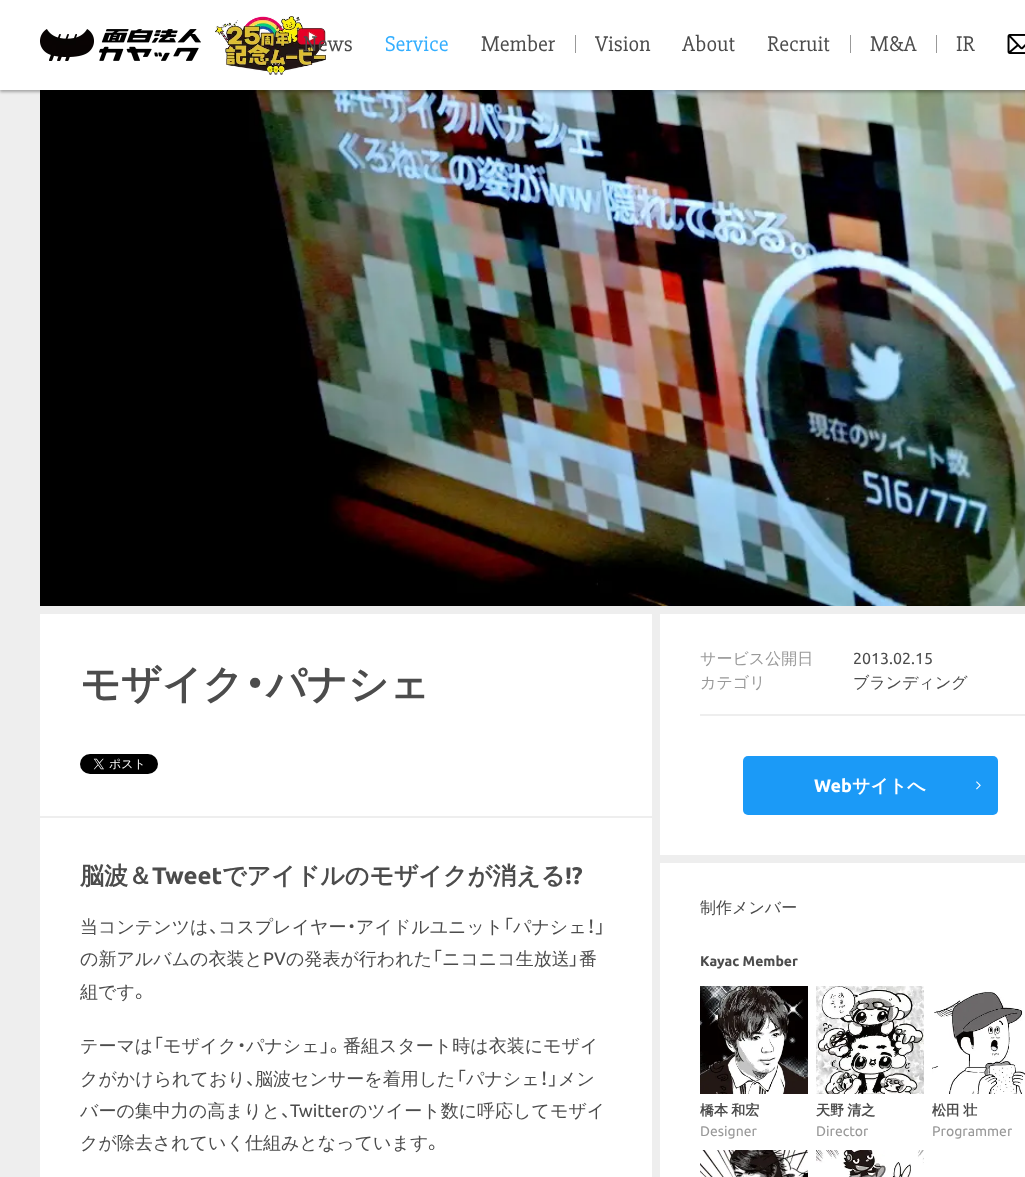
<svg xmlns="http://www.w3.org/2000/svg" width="1025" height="1177">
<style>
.a{font:22px 'Slabo 27px';fill:#4c4c4c}
.b{font:22px 'Slabo 27px';fill:#33aeff}
.c{font:bold 40px WenQuanYi Zen Hei;fill:#4c4c4c}
.d{font:bold 40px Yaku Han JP;fill:#4c4c4c}
.e{font:bold 24px WenQuanYi Zen Hei;fill:#4c4c4c}
.f{font:bold 24px Ubuntu;fill:#4c4c4c}
.g{font:500 18px WenQuanYi Zen Hei;fill:#4c4c4c}
.h{font:18px Yaku Han JP;fill:#4c4c4c}
.i{font:18px Ubuntu;fill:#4c4c4c}
.j{font:500 16px WenQuanYi Zen Hei;fill:#999}
.k{font:16px Ubuntu;fill:#4c4c4c}
.l{font:500 16px WenQuanYi Zen Hei;fill:#4c4c4c}
.m{font:bold 18px Ubuntu;fill:#fff}
.n{font:bold 18px WenQuanYi Zen Hei;fill:#fff}
.o{font:bold 14px Ubuntu;fill:#4c4c4c}
.p{font:bold 14px WenQuanYi Zen Hei;fill:#4c4c4c}
.q{font:14px Ubuntu;fill:#999}
</style>
<rect width="100%" height="100%" fill="#eee"/>
<image href="5.png" x="40" y="90" width="985" height="516"/>
<path fill="#0000004d" filter="blur(1.5px)" d="M0 2h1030v90H0z"/>
<path fill="#fff" d="M0 0h1025v90H0z"/>
<image href="1.png" x="40" y="29" width="54" height="32"/>
<image href="2.png" x="99" y="29" width="102" height="32"/>
<image href="3.png" x="215" y="16" width="111" height="59"/>
<path fill="#999" d="M575 35h1v18H575z"/>
<path fill="#999" d="M850 35h1v18H850z"/>
<path fill="#999" d="M936 35h1v18H936z"/>
<image href="4.png" x="1007" y="34" width="18" height="20"/>
<path fill="#fff" d="M40 614h612v202H40z"/>
<image href="6.png" x="80" y="754" width="78" height="20"/>
<path fill="#fff" d="M40 818h612v359H40z"/>
<path fill="#fff" d="M660 614h365v241H660z"/>
<path fill="#eee" d="M700 714h325v2H700z"/>
<rect fill="#1b9af7" x="743" y="756" width="255" height="59" rx="5"/>
<image href="7.png" x="976" y="781" width="5" height="9"/>
<path fill="#fff" d="M660 863h365v314H660z"/>
<image href="8.png" x="700" y="986" width="108" height="108"/>
<image href="9.png" x="816" y="986" width="108" height="108"/>
<image href="10.png" x="932" y="991" width="93" height="103"/>
<image href="11.png" x="700" y="1150" width="108" height="27"/>
<image href="12.png" x="816" y="1150" width="108" height="27"/>
<text class="a" x="303" y="51">News</text>
<text class="b" x="385" y="51">Service</text>
<text class="a" x="481" y="51">Member</text>
<text class="a" x="595" y="51">Vision</text>
<text class="a" x="682" y="51">About</text>
<text class="a" x="767" y="51">Recruit</text>
<text class="a" x="870" y="51">M&amp;A</text>
<text class="a" x="956" y="51">IR</text>
<text class="c" x="80" y="698">モザイク</text>
<text class="d" x="244" y="698">・</text>
<text class="c" x="266" y="698">パナシェ</text>
<text class="e" x="80" y="884">脳波＆</text>
<text class="f" x="152" y="884">Tweet</text>
<text class="e" x="222" y="884">でアイドルのモザイクが消える</text>
<text class="f" x="565" y="884">!?</text>
<text class="g" x="80" y="933">当コンテンツは</text>
<text class="g" x="218" y="933">コスプレイヤー</text>
<text class="h" x="347" y="933">・</text>
<text class="g" x="356" y="933">アイドルユニット</text>
<text class="h" x="503" y="933">「</text>
<text class="g" x="513" y="933">パナシェ</text>
<text class="h" x="587" y="933">！」</text>
<text class="h" x="209" y="933">、</text>
<text class="g" x="80" y="965">の新アルバムの衣装と</text>
<text class="i" x="263" y="965">PV</text>
<text class="g" x="286" y="965">の発表が行われた</text>
<text class="h" x="432" y="965">「</text>
<text class="g" x="442" y="965">ニコニコ生放送</text>
<text class="h" x="569" y="965">」</text>
<text class="g" x="579" y="965">番</text>
<text class="g" x="80" y="998">組です</text>
<text class="h" x="135" y="998">。</text>
<text class="g" x="80" y="1052">テーマは</text>
<text class="h" x="153" y="1052">「</text>
<text class="g" x="163" y="1052">モザイク</text>
<text class="h" x="237" y="1052">・</text>
<text class="g" x="246" y="1052">パナシェ</text>
<text class="h" x="320" y="1052">」。</text>
<text class="g" x="343" y="1052">番組スタート時は衣装にモザイ</text>
<text class="g" x="80" y="1085">クがかけられており</text>
<text class="h" x="246" y="1085">、</text>
<text class="g" x="255" y="1085">脳波センサーを着用した</text>
<text class="h" x="456" y="1085">「</text>
<text class="g" x="466" y="1085">パナシェ</text>
<text class="h" x="540" y="1085">！」</text>
<text class="g" x="558" y="1085">メン</text>
<text class="g" x="80" y="1117">バーの集中力の高まりと</text>
<text class="h" x="281" y="1117">、</text>
<text class="i" x="290" y="1117">Twitter</text>
<text class="g" x="349" y="1117">のツイート数に呼応してモザイ</text>
<text class="g" x="80" y="1149">クが除去されていく仕組みとなっています</text>
<text class="h" x="428" y="1149">。</text>
<text class="j" x="700" y="664">サービス公開日</text>
<text class="k" x="853" y="664">2013.02.15</text>
<text class="j" x="700" y="688">カテゴリ</text>
<text class="l" x="853" y="688">ブランディング</text>
<text class="m" x="814" y="792">Web</text>
<text class="n" x="852" y="792">サイトへ</text>
<text class="l" x="700" y="913">制作メンバー</text>
<text class="o" x="700" y="966">Kayac Member</text>
<text class="p" x="700" y="1115" word-spacing="-1">橋本 和宏</text>
<text class="q" x="700" y="1136">Designer</text>
<text class="p" x="816" y="1115" word-spacing="-1">天野 清之</text>
<text class="q" x="816" y="1136">Director</text>
<path fill="#fff" d="M868 1128h1v2H868z"/>
<text class="p" x="932" y="1115" word-spacing="-1">松田 壮</text>
<text class="q" x="932" y="1136">Programmer</text>
<path fill="#fff" d="M1012 1128h1v2H1012z"/>
</svg>
